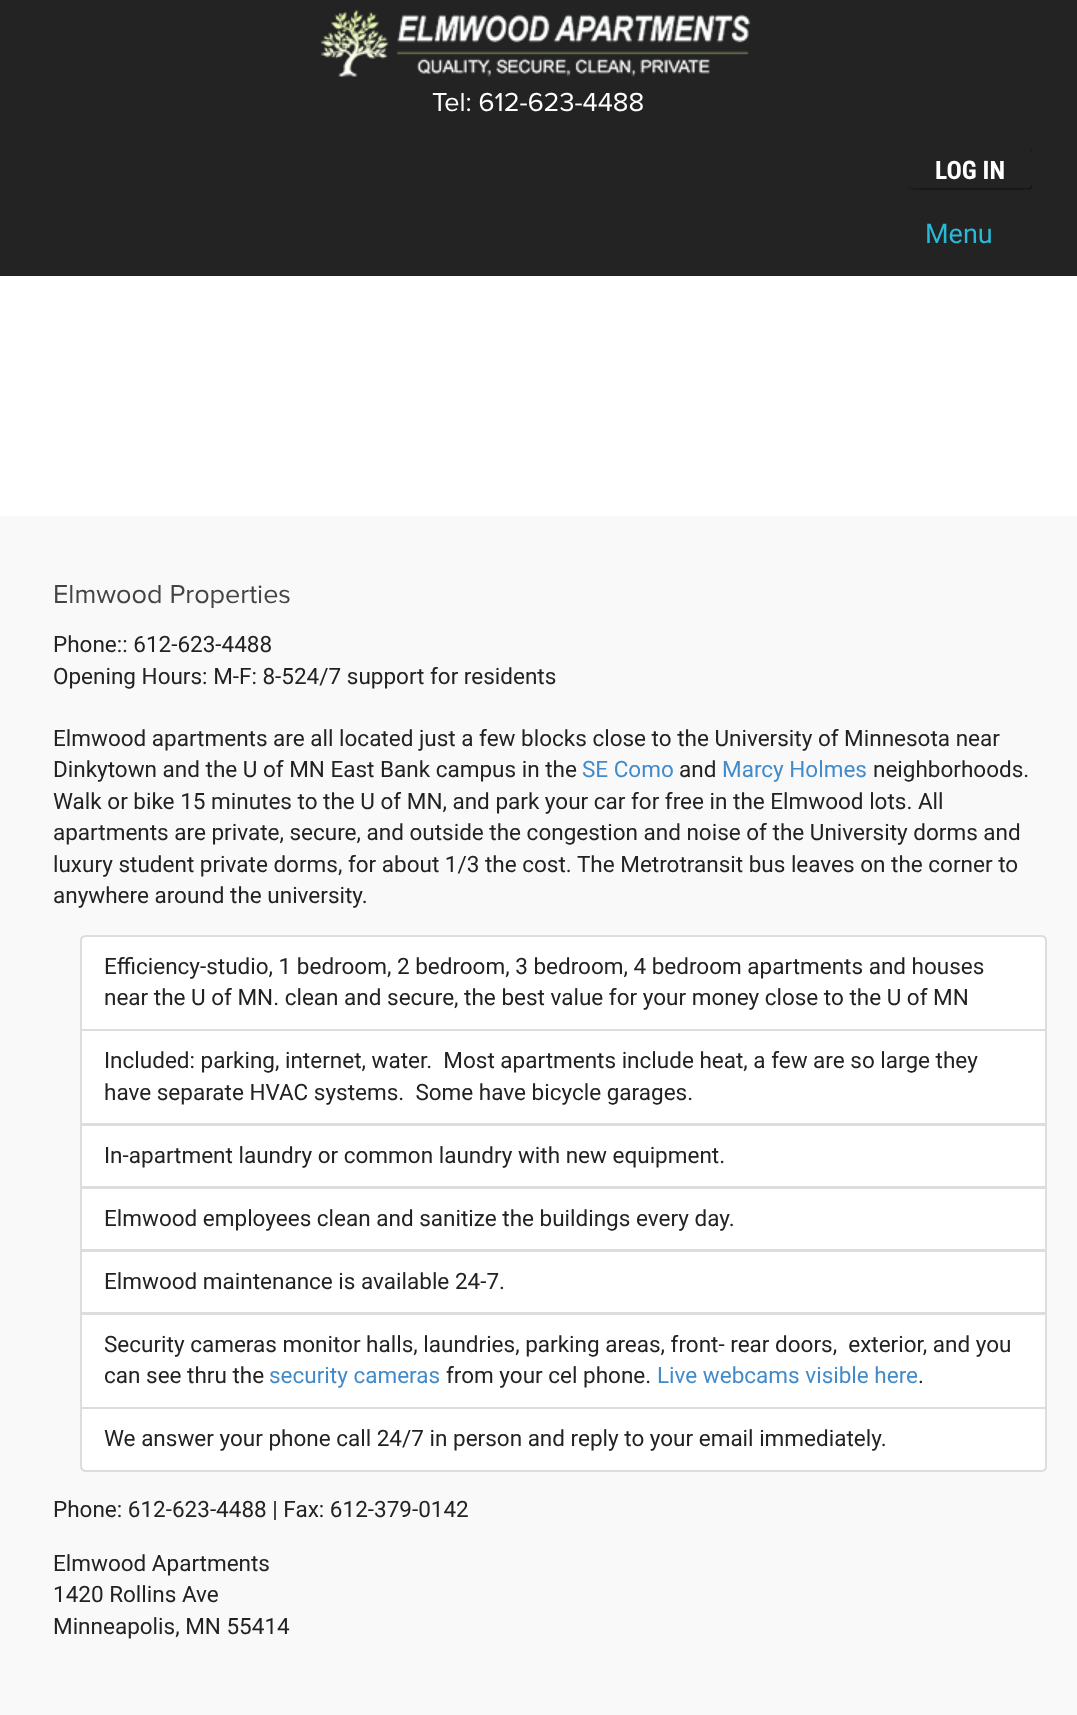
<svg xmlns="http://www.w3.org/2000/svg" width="1077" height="1715">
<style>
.a{font:27px Proxima Nova;fill:#fff}
.b{font:bold 25.5px Roboto Condensed;fill:#fff}
.c{font:27px Roboto;fill:#28b8d8}
.d{font:27px Proxima Nova;fill:#444}
.e{font:22.5px Roboto;fill:#222}
.f{font:22.5px Roboto;fill:#428bca}
</style>
<defs>
<clipPath id="clip1"><path d="M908 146h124v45H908z"/></clipPath>
<clipPath id="clip2"><path d="M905 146h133v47h-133zm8 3h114c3 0 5 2 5 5v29c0 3-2 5-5 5h-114c-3 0-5-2-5-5v-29c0-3 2-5 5-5z" clip-rule="evenodd"/></clipPath>
</defs>
<rect width="100%" height="100%" fill="#f9f9f9"/>
<path fill="#232323" d="M0 0h1077v276H0z"/>
<image href="1.png" x="320" y="10" width="431" height="67"/>
<g clip-path="url(#clip1)">
<g clip-path="url(#clip2)">
<rect fill="#00000080" filter="blur(1px)" x="909" y="150" width="125" height="39" rx="5"/>
</g>
</g>
<path fill="#fff" d="M0 276h1077v240H0z"/>
<path fill="#fff" stroke="#ddd" stroke-width="2" d="M86 936h955c3 0 5 2 5 5v89h-965v-89c0-3 2-5 5-5z"/>
<path fill="#fff" stroke="#ddd" stroke-width="2" d="M81 1030h965v94H81z"/>
<path fill="#fff" stroke="#ddd" stroke-width="2" d="M81 1125h965v62H81z"/>
<path fill="#fff" stroke="#ddd" stroke-width="2" d="M81 1188h965v62H81z"/>
<path fill="#fff" stroke="#ddd" stroke-width="2" d="M81 1251h965v62H81z"/>
<path fill="#fff" stroke="#ddd" stroke-width="2" d="M81 1314h965v94H81z"/>
<path fill="#fff" stroke="#ddd" stroke-width="2" d="M81 1408h965v58c0 3-2 5-5 5h-955c-3 0-5-2-5-5z"/>
<text class="a" x="432" y="111">Tel: 612-623-4488</text>
<text class="b" x="935" y="179">LOG IN</text>
<text class="c" x="925" y="243">Menu</text>
<text class="d" x="53" y="603">Elmwood Properties</text>
<text class="e" x="53" y="652">Phone:: 612-623-4488</text>
<text class="e" x="53" y="684">Opening Hours: M-F: 8-524/7 support for residents</text>
<text class="e" x="53" y="746">Elmwood apartments are all located just a few blocks close to the University of Minnesota near</text>
<text class="e" x="53" y="777">Dinkytown and the U of MN East Bank campus in the</text>
<text class="f" x="582" y="777">SE Como</text>
<text class="e" x="679" y="777">and</text>
<text class="f" x="722" y="777">Marcy Holmes</text>
<text class="e" x="873" y="777">neighborhoods.</text>
<text class="e" x="53" y="809">Walk or bike 15 minutes to the U of MN, and park your car for free in the Elmwood lots. All</text>
<text class="e" x="53" y="840">apartments are private, secure, and outside the congestion and noise of the University dorms and</text>
<text class="e" x="53" y="872">luxury student private dorms, for about 1/3 the cost. The Metrotransit bus leaves on the corner to</text>
<text class="e" x="53" y="903">anywhere around the university.</text>
<text class="e" x="104" y="974">Efficiency-studio, 1 bedroom, 2 bedroom, 3 bedroom, 4 bedroom apartments and houses</text>
<text class="e" x="104" y="1005">near the U of MN. clean and secure, the best value for your money close to the U of MN</text>
<text class="e" xml:space="preserve" x="104" y="1068">Included: parking, internet, water.  Most apartments include heat, a few are so large they</text>
<text class="e" xml:space="preserve" x="104" y="1100">have separate HVAC systems.  Some have bicycle garages.</text>
<text class="e" x="104" y="1163">In-apartment laundry or common laundry with new equipment.</text>
<text class="e" x="104" y="1226">Elmwood employees clean and sanitize the buildings every day.</text>
<text class="e" x="104" y="1289">Elmwood maintenance is available 24-7.</text>
<text class="e" xml:space="preserve" x="104" y="1352">Security cameras monitor halls, laundries, parking areas, front- rear doors,  exterior, and you</text>
<text class="e" x="104" y="1383">can see thru the</text>
<text class="f" x="269" y="1383">security cameras</text>
<text class="e" x="446" y="1383">from your cel phone.</text>
<text class="f" x="657" y="1383">Live webcams visible here</text>
<text class="e" x="918" y="1383">.</text>
<text class="e" x="104" y="1446">We answer your phone call 24/7 in person and reply to your email immediately.</text>
<text class="e" x="53" y="1517">Phone: 612-623-4488 | Fax: 612-379-0142</text>
<text class="e" x="53" y="1571">Elmwood Apartments</text>
<text class="e" x="53" y="1602">1420 Rollins Ave</text>
<text class="e" x="53" y="1634">Minneapolis, MN 55414</text>
</svg>
